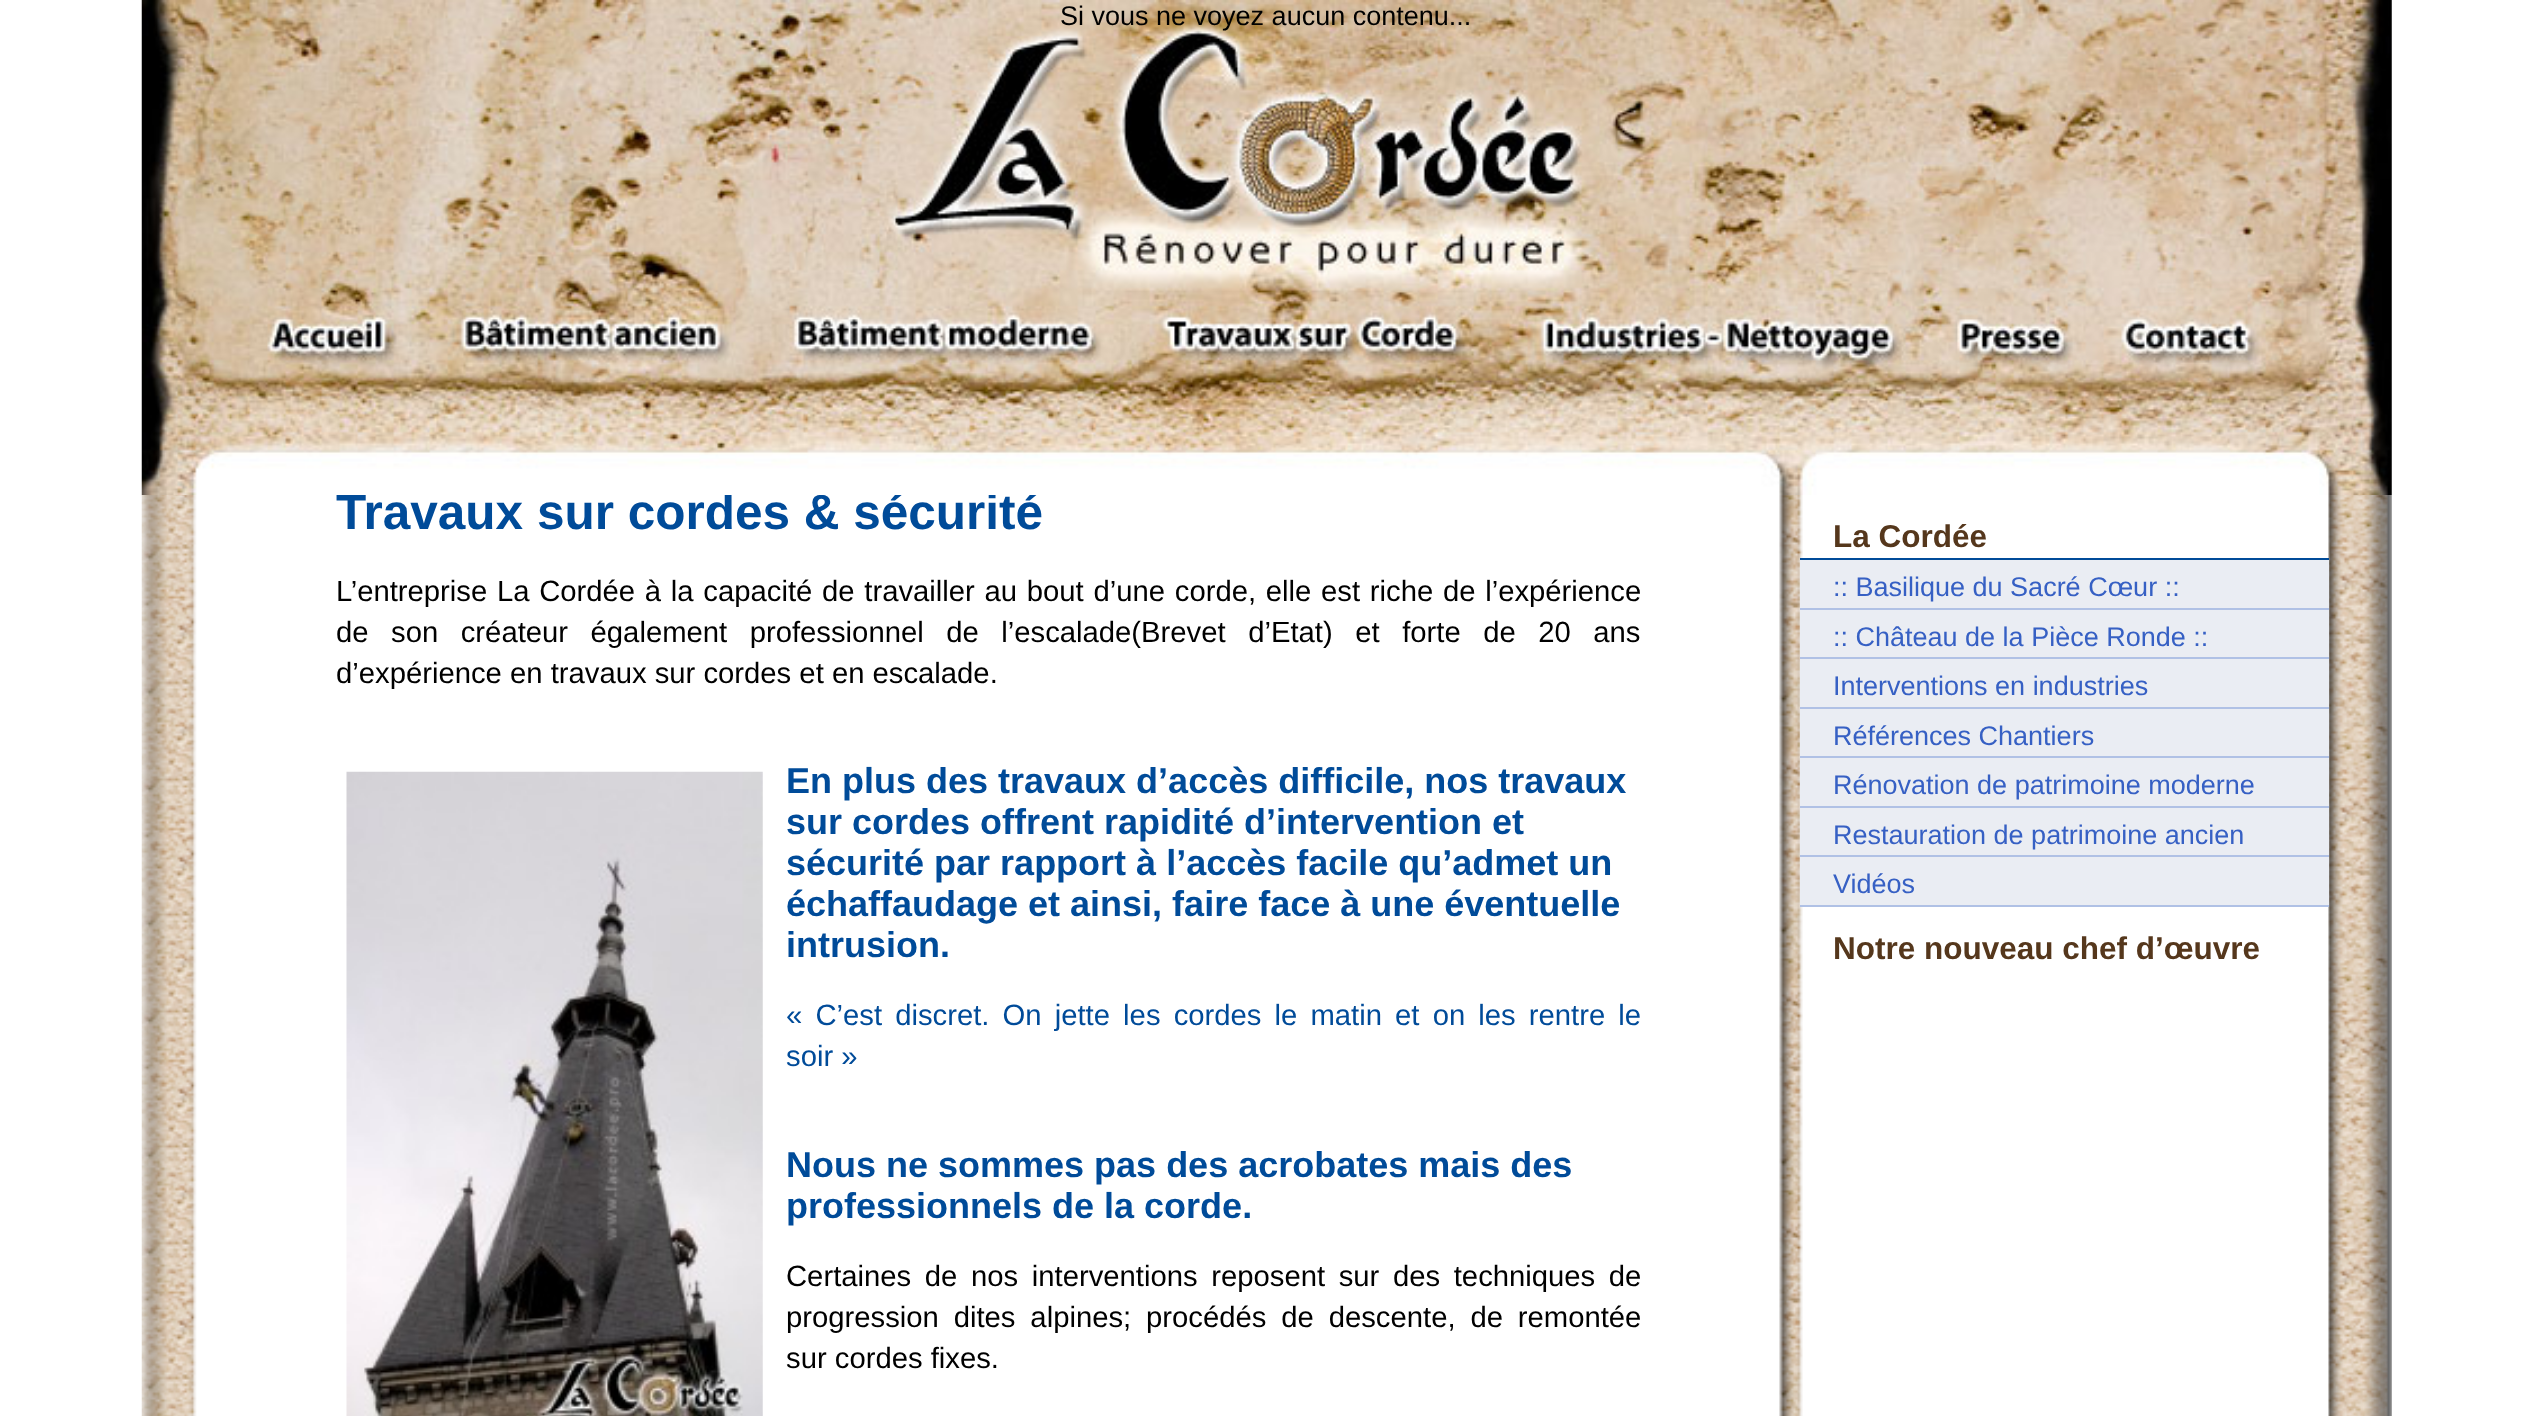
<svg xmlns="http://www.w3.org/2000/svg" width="2530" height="1416">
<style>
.a{font:bold 49.5px Liberation Sans;fill:#004b99}
.b{font:27px Liberation Sans;fill:#000}
.c{font:29.25px Liberation Sans;fill:#000}
.d{font:bold 36px Liberation Sans;fill:#004b99}
.e{font:29.25px Liberation Sans;fill:#004b99}
.f{font:bold 31.5px Liberation Sans;fill:#55371c}
.g{font:27px Liberation Sans;fill:#3660c4}
</style>
<rect width="100%" height="100%" fill="#fff"/>
<image href="2.png" x="141" y="495" width="2251" height="921"/>
<image href="3.png" x="346" y="771" width="417" height="645"/>
<path fill="#004b99" d="M1800 558h529v2H1800z"/>
<path fill="#eaedf3" d="M1800 560h529v48H1800z"/>
<path fill="#b0c1e5" d="M1800 608h529v2H1800z"/>
<path fill="#eaedf3" d="M1800 610h529v47H1800z"/>
<path fill="#b0c1e5" d="M1800 657h529v2H1800z"/>
<path fill="#eaedf3" d="M1800 659h529v48H1800z"/>
<path fill="#b0c1e5" d="M1800 707h529v2H1800z"/>
<path fill="#eaedf3" d="M1800 709h529v47H1800z"/>
<path fill="#b0c1e5" d="M1800 756h529v2H1800z"/>
<path fill="#eaedf3" d="M1800 758h529v48H1800z"/>
<path fill="#b0c1e5" d="M1800 806h529v2H1800z"/>
<path fill="#eaedf3" d="M1800 808h529v47H1800z"/>
<path fill="#b0c1e5" d="M1800 855h529v2H1800z"/>
<path fill="#eaedf3" d="M1800 857h529v48H1800z"/>
<path fill="#b0c1e5" d="M1800 905h529v2H1800z"/>
<text class="a" x="336" y="529">Travaux sur cordes &amp; sécurité</text>
<image href="1.png" x="141" y="0" width="2251" height="495"/>
<text class="b" x="1060" y="25">Si vous ne voyez aucun contenu...</text>
<text class="c" x="336" y="601" word-spacing="1.6">L’entreprise La Cordée à la capacité de travailler au bout d’une corde, elle est riche de l’expérience</text>
<text class="c" x="336" y="642" word-spacing="14.4">de son créateur également professionnel de l’escalade(Brevet d’Etat) et forte de 20 ans</text>
<text class="c" x="336" y="683">d’expérience en travaux sur cordes et en escalade.</text>
<text class="d" x="786" y="793">En plus des travaux d’accès difficile, nos travaux</text>
<text class="d" x="786" y="834">sur cordes offrent rapidité d’intervention et</text>
<text class="d" x="786" y="875">sécurité par rapport à l’accès facile qu’admet un</text>
<text class="d" x="786" y="916">échaffaudage et ainsi, faire face à une éventuelle</text>
<text class="d" x="786" y="957">intrusion.</text>
<text class="e" x="786" y="1025" word-spacing="5">« C’est discret. On jette les cordes le matin et on les rentre le</text>
<text class="e" x="786" y="1066">soir »</text>
<text class="d" x="786" y="1177">Nous ne sommes pas des acrobates mais des</text>
<text class="d" x="786" y="1218">professionnels de la corde.</text>
<text class="c" x="786" y="1286" word-spacing="5.5">Certaines de nos interventions reposent sur des techniques de</text>
<text class="c" x="786" y="1327" word-spacing="6.75">progression dites alpines; procédés de descente, de remontée</text>
<text class="c" x="786" y="1368">sur cordes fixes.</text>
<text class="f" x="1833" y="547">La Cordée</text>
<text class="g" x="1833" y="596">:: Basilique du Sacré Cœur ::</text>
<text class="g" x="1833" y="646">:: Château de la Pièce Ronde ::</text>
<text class="g" x="1833" y="695">Interventions en industries</text>
<text class="g" x="1833" y="745">Références Chantiers</text>
<text class="g" x="1833" y="794">Rénovation de patrimoine moderne</text>
<text class="g" x="1833" y="844">Restauration de patrimoine ancien</text>
<text class="g" x="1833" y="893">Vidéos</text>
<text class="f" x="1833" y="959">Notre nouveau chef d’œuvre</text>
</svg>
